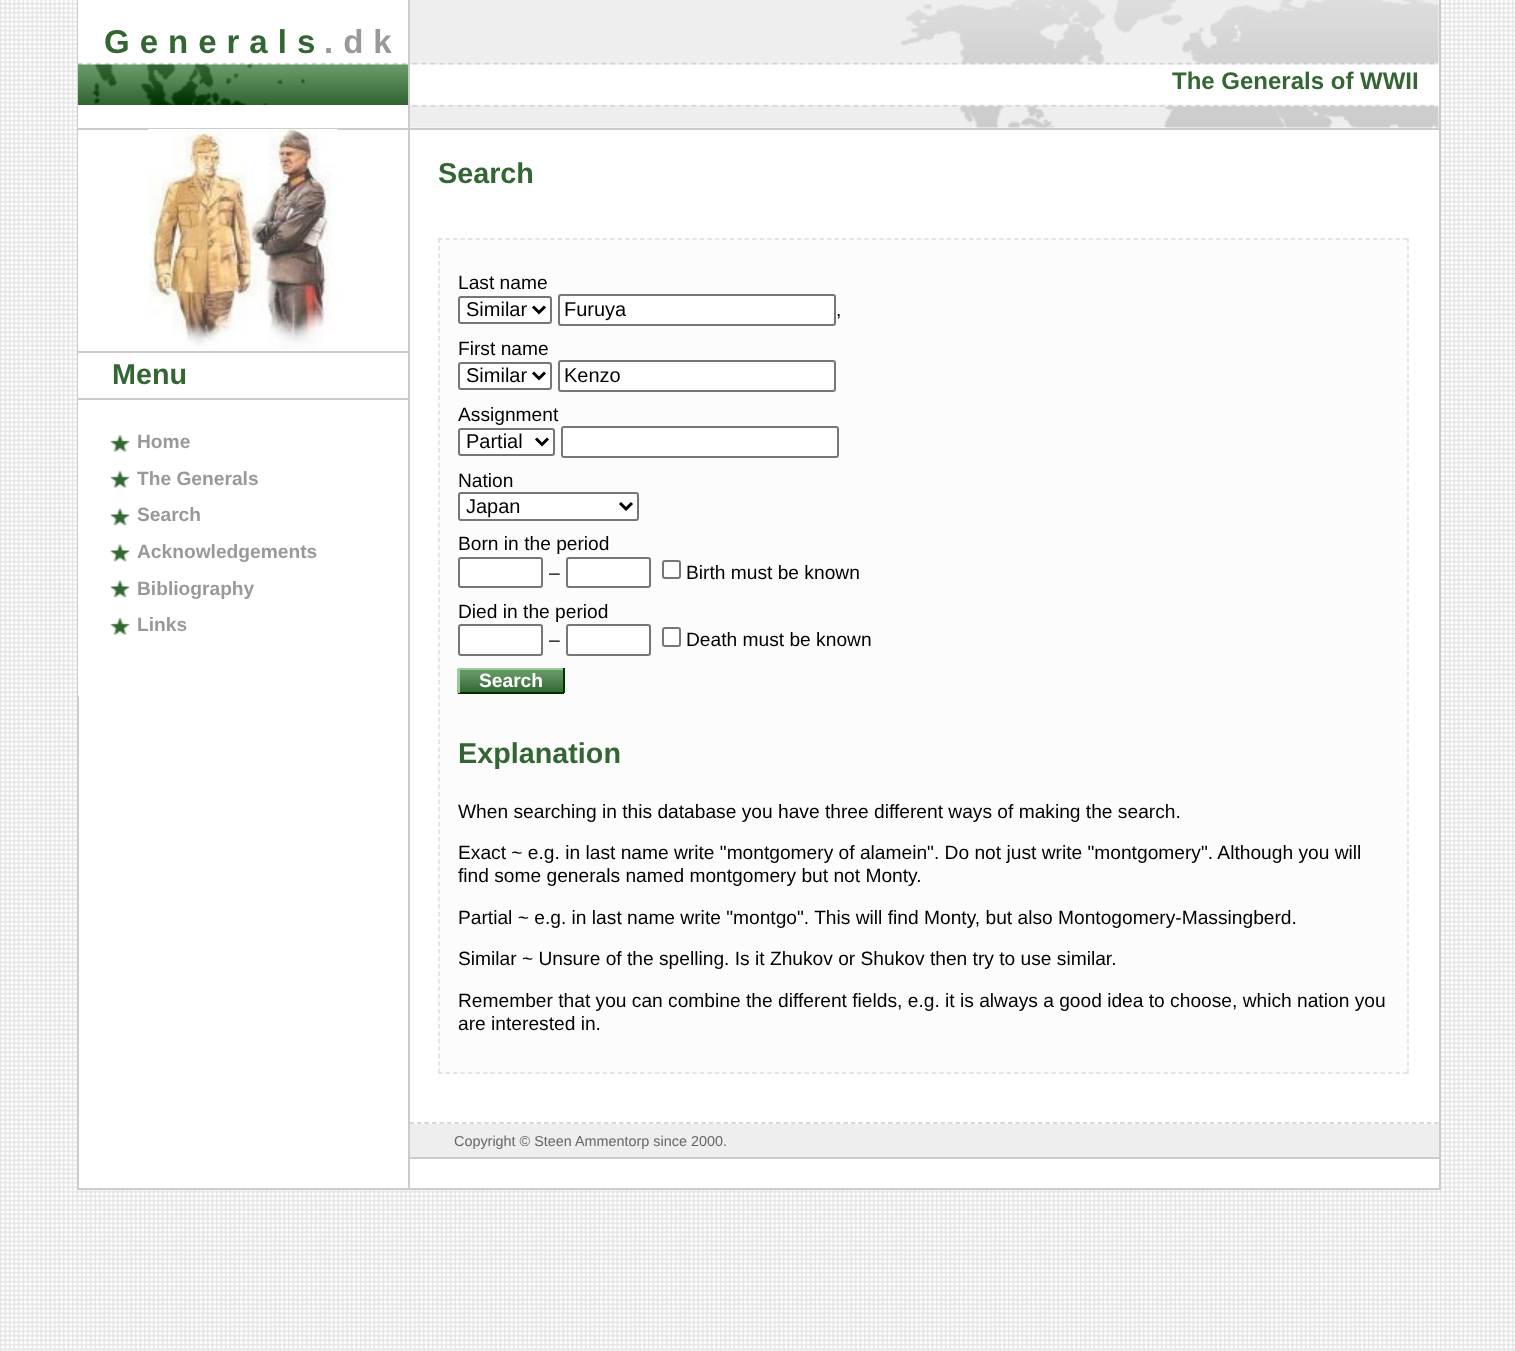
<svg xmlns="http://www.w3.org/2000/svg" width="1515" height="1351">
<style>
.a{font:bold 33px Liberation Sans;letter-spacing:10px;fill:#363}
.b{font:bold 33px Liberation Sans;letter-spacing:10px;fill:#999}
.c{font:bold 24px Liberation Sans;fill:#363}
.d{font:bold 28.75px Liberation Sans;fill:#363}
.e{font:bold 19.2px Liberation Sans;fill:#999}
.f{font:19.2px Liberation Sans;fill:#000}
.g{font:20px Liberation Sans;fill:#000}
.h{font:bold 19.2px Liberation Sans;fill:#fff}
.i{font:14.4px Liberation Sans;fill:#666}
</style>
<rect width="100%" height="100%" fill="#fff"/>
<image href="1.png" x="0" y="0" width="1515" height="1351"/>
<path fill="#fff" d="M79 0h1360v1188H79z"/>
<path fill="#ccc" d="M1439 0h2v1190H1439z"/>
<path fill="#ccc" d="M77 1188h1363v2H77z"/>
<path fill="#ccc" d="M77 0h2v1190H77z"/>
<path fill="#fff" d="M78 0h1v128H78z"/>
<image href="2.png" x="78" y="62" width="330" height="43"/>
<image href="3.png" x="410" y="0" width="1029" height="128"/>
<path fill="#ccc" d="M78 128h1361v2H78z"/>
<path fill="#ccc" d="M408 0h2v1188H408z"/>
<path fill="#fff" d="M78 130h1v566H78z"/>
<image href="4.png" x="148" y="129" width="190" height="220"/>
<path fill="#ccc" d="M78 351h330v2H78z"/>
<path fill="#ccc" d="M78 398h330v2H78z"/>
<image href="5.png" x="110" y="434" width="20" height="18"/>
<image href="5.png" x="110" y="470" width="20" height="18"/>
<image href="6.png" x="110" y="508" width="20" height="18"/>
<image href="6.png" x="110" y="544" width="20" height="18"/>
<image href="6.png" x="110" y="580" width="20" height="18"/>
<image href="5.png" x="110" y="617" width="20" height="18"/>
<path fill="none" stroke="#ccc" stroke-width="1.5" stroke-dasharray="4.5 2.98" d="M409.5 1123h1029"/>
<path fill="#fcfcfc" d="M438 239h971v835H438z"/>
<path fill="none" stroke="#ddd" stroke-width="1.5" stroke-dasharray="4.5 2.98" d="M438 239h970.5"/>
<path fill="none" stroke="#ddd" stroke-width="1.5" stroke-dasharray="4.5 2.98" d="M1408 238.5v835.5"/>
<path fill="none" stroke="#ddd" stroke-width="1.5" stroke-dasharray="4.5 2.98" d="M438 1073h970.5"/>
<path fill="none" stroke="#ddd" stroke-width="1.5" stroke-dasharray="4.5 2.98" d="M439 238.5v835.5"/>
<rect fill="#fff" stroke="#767676" stroke-width="2" x="459" y="297" width="92" height="26" rx="2"/>
<path fill="none" stroke="#000" stroke-width="3" d="M533 306.5l6 6l6-6"/>
<rect fill="#fff" stroke="#767676" stroke-width="2" x="559" y="295" width="276" height="30" rx="2"/>
<rect fill="#fff" stroke="#767676" stroke-width="2" x="459" y="363" width="92" height="26" rx="2"/>
<path fill="none" stroke="#000" stroke-width="3" d="M533 372.5l6 6l6-6"/>
<rect fill="#fff" stroke="#767676" stroke-width="2" x="559" y="361" width="276" height="30" rx="2"/>
<rect fill="#fff" stroke="#767676" stroke-width="2" x="459" y="429" width="95" height="26" rx="2"/>
<path fill="none" stroke="#000" stroke-width="3" d="M536 438.5l6 6l6-6"/>
<rect fill="#fff" stroke="#767676" stroke-width="2" x="562" y="427" width="276" height="30" rx="2"/>
<rect fill="#fff" stroke="#767676" stroke-width="2" x="459" y="493" width="179" height="27" rx="2"/>
<path fill="none" stroke="#000" stroke-width="3" d="M620 503l6 6l6-6"/>
<rect fill="#fff" stroke="#767676" stroke-width="2" x="459" y="558" width="83" height="29" rx="2"/>
<rect fill="#fff" stroke="#767676" stroke-width="2" x="567" y="558" width="83" height="29" rx="2"/>
<rect fill="#fff" stroke="#767676" stroke-width="2" x="663" y="561" width="17" height="17" rx="2"/>
<rect fill="#fff" stroke="#767676" stroke-width="2" x="459" y="625" width="83" height="30" rx="2"/>
<rect fill="#fff" stroke="#767676" stroke-width="2" x="567" y="625" width="83" height="30" rx="2"/>
<rect fill="#fff" stroke="#767676" stroke-width="2" x="663" y="628" width="17" height="18" rx="2"/>
<image href="7.png" x="457" y="669" width="106" height="24"/>
<path fill="#9c9" d="M458 668h106v2H458z"/>
<path fill="#030" d="M563 668h2v25H563z"/>
<path fill="#030" d="M458 692h106v2H458z"/>
<path fill="#9c9" d="M458 668h2v25H458z"/>
<path fill="#eee" d="M410 1124h1029v33H410z"/>
<path fill="#ccc" d="M410 1157h1029v2H410z"/>
<text class="a" x="104" y="53">Generals</text>
<text class="b" x="324" y="53">.dk</text>
<text class="c" x="1172" y="89">The Generals of WWII</text>
<text class="d" x="112" y="384">Menu</text>
<text class="e" x="137" y="448">Home</text>
<text class="e" x="137" y="485">The Generals</text>
<text class="e" x="137" y="521">Search</text>
<text class="e" x="137" y="558">Acknowledgements</text>
<text class="e" x="137" y="595">Bibliography</text>
<text class="e" x="137" y="631">Links</text>
<text class="d" x="438" y="183">Search</text>
<text class="f" x="458" y="289">Last name</text>
<text class="g" x="466" y="316">Similar</text>
<text class="g" x="564" y="316">Furuya</text>
<text class="f" x="836" y="316">,</text>
<text class="f" x="458" y="355">First name</text>
<text class="g" x="466" y="382">Similar</text>
<text class="g" x="564" y="382">Kenzo</text>
<text class="f" x="458" y="421">Assignment</text>
<text class="g" x="466" y="448">Partial</text>
<text class="f" x="458" y="487">Nation</text>
<text class="g" x="466" y="513">Japan</text>
<text class="f" x="458" y="550">Born in the period</text>
<text class="f" x="549" y="579">–</text>
<text class="f" x="686" y="579">Birth must be known</text>
<text class="f" x="458" y="618">Died in the period</text>
<text class="f" x="549" y="646">–</text>
<text class="f" x="686" y="646">Death must be known</text>
<text class="h" x="479" y="687">Search</text>
<text class="d" x="458" y="763">Explanation</text>
<text class="f" x="458" y="818">When searching in this database you have three different ways of making the search.</text>
<text class="f" x="458" y="859">Exact ~ e.g. in last name write "montgomery of alamein". Do not just write "montgomery". Although you will</text>
<text class="f" x="458" y="882">find some generals named montgomery but not Monty.</text>
<text class="f" x="458" y="924">Partial ~ e.g. in last name write "montgo". This will find Monty, but also Montogomery-Massingberd.</text>
<text class="f" x="458" y="965">Similar ~ Unsure of the spelling. Is it Zhukov or Shukov then try to use similar.</text>
<text class="f" x="458" y="1007">Remember that you can combine the different fields, e.g. it is always a good idea to choose, which nation you</text>
<text class="f" x="458" y="1030">are interested in.</text>
<text class="i" x="454" y="1146">Copyright © Steen Ammentorp since 2000.</text>
</svg>
